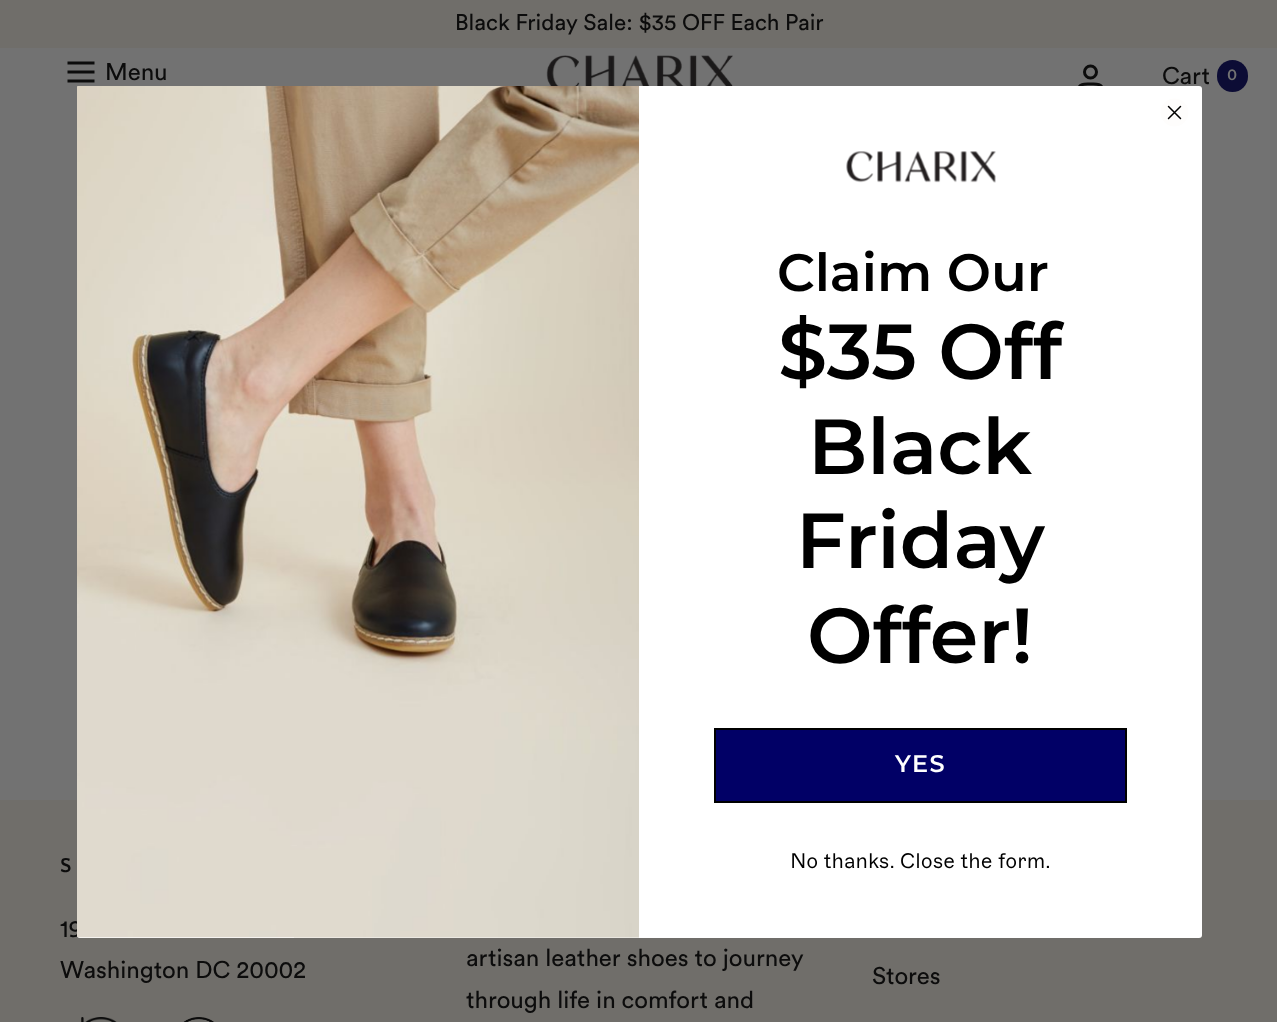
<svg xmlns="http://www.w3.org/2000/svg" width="1277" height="1022">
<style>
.a{font:22.5px Circular;fill:#0c0c0c}
.b{font:24px Circular;fill:#0c0c0c}
.c{font:bold 16px Quattrocento Sans;fill:#727272}
.d{font:bold 21px Quattrocento Sans;letter-spacing:1.5px;fill:#0c0c0c}
.e{font:300 21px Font;fill:#000}
.f{font:600 24px Montserrat;letter-spacing:1.5px;fill:#fff}
.g{font:600 78px Montserrat;fill:#000}
.h{font:600 52.5px Montserrat;fill:#000}
</style>
<rect width="100%" height="100%" fill="#727272"/>
<path fill="#706e6a" d="M0 0h1277v48H0z"/>
<path fill="none" stroke="#0c0c0c" stroke-width="3" d="M67.5 63h27m-27 18h27zm0-9h27z"/>
<image href="1.png" x="546" y="55" width="187" height="31"/>
<circle fill="none" stroke="#0c0c0c" stroke-width="3" cx="1090.5" cy="72" r="6"/>
<path fill="none" stroke="#0c0c0c" stroke-width="3" d="M1078.5 90c0-7 7.5-6 12-6c4.5 0 12-1 12 6"/>
<rect fill="#0c0c35" x="1217" y="60" width="31" height="32" rx="15.5"/>
<path fill="#706e6a" d="M0 800h1277v222H0z"/>
<image href="4.png" x="81" y="1017" width="36" height="5"/>
<image href="5.png" x="183" y="1017" width="31" height="5"/>
<text class="a" x="455" y="30">Black Friday Sale: $35 OFF Each Pair</text>
<text class="b" x="105" y="80">Menu</text>
<text class="b" x="1162" y="84">Cart</text>
<text class="c" x="1227" y="80">0</text>
<text class="d" x="60" y="872">S</text>
<text class="b" x="60" y="937">19</text>
<rect fill="#fff" x="77" y="86" width="1125" height="852" rx="3"/>
<circle fill="#fefdfc" cx="1174.5" cy="112.5" r="14"/>
<path fill="none" stroke="#000" stroke-width="1.5" stroke-linecap="round" stroke-linejoin="round" d="M1168.5 106.5l12 12m-12 0l12-12z"/>
<text class="e" x="790" y="868">No thanks. Close the form.</text>
<path fill="#010066" stroke="#000" stroke-width="2" d="M715 729h411v73H715z"/>
<text class="f" x="895" y="772">YES</text>
<text class="g" x="807" y="663">Offer!</text>
<text class="g" x="796" y="568">Friday</text>
<text class="g" x="808" y="474">Black</text>
<text class="g" x="778" y="379">$35 Off</text>
<text class="h" x="777" y="291">Claim Our</text>
<image href="3.png" x="846" y="151" width="150" height="32"/>
<image href="2.png" x="77" y="86" width="562" height="852"/>
<text class="b" x="60" y="978">Washington DC 20002</text>
<text class="b" x="466" y="966">artisan leather shoes to journey</text>
<text class="b" x="466" y="1008">through life in comfort and</text>
<text class="b" x="872" y="984">Stores</text>
</svg>
